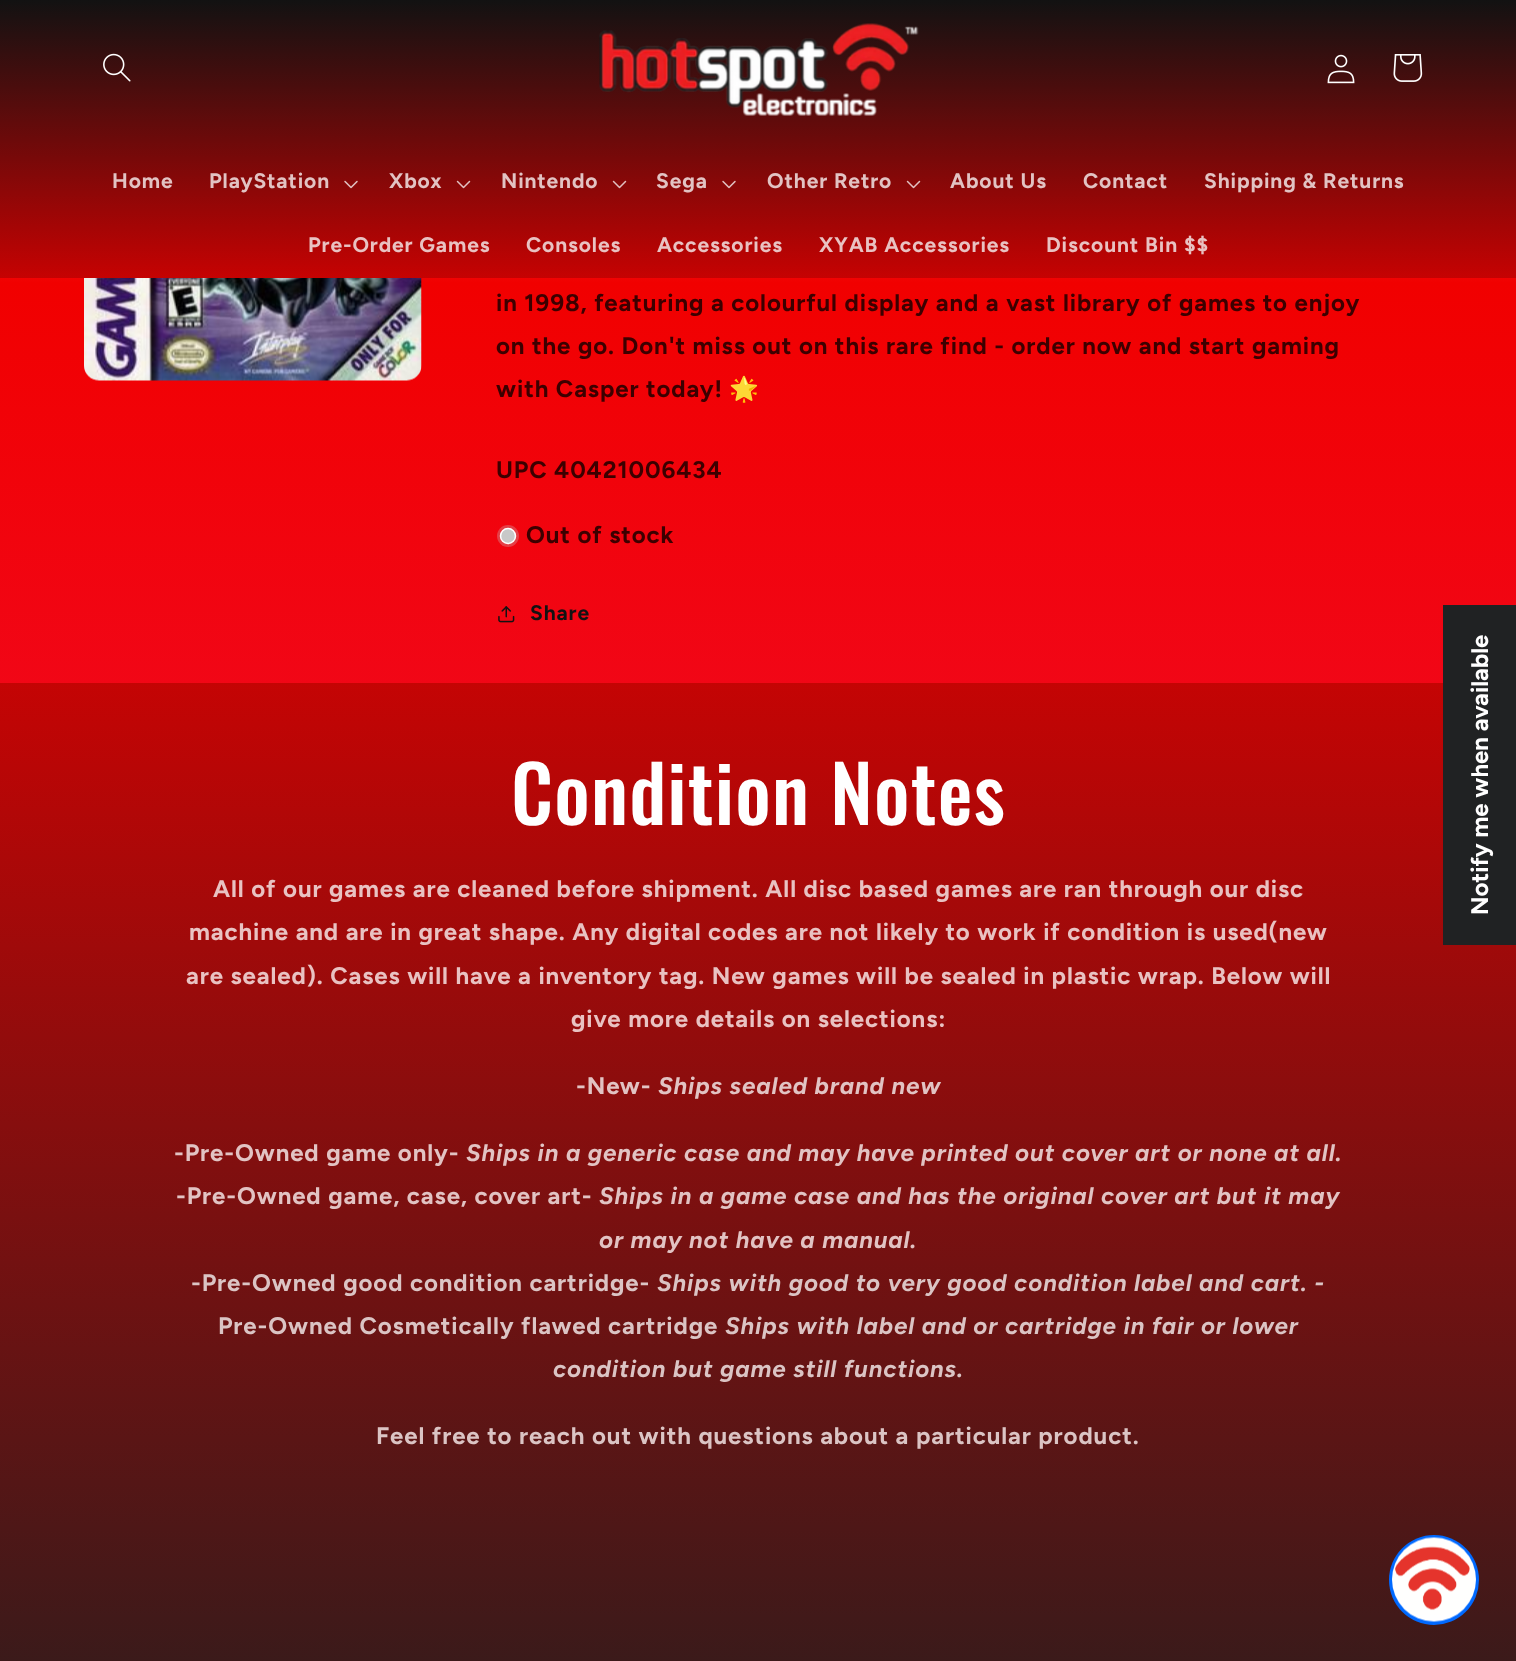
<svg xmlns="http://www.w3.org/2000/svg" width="1516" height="1661">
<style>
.a{font:bold 21px Figtree;letter-spacing:0.9px;fill:#e2c3c3}
.b{font:bold 21px Figtree;letter-spacing:0.9px;fill:#e9c2c2}
.c{font:bold 24px Figtree;letter-spacing:0.9px;fill:#3c0000}
.d{font:bold 24px Noto Color Emoji;letter-spacing:0.9px;fill:#3c0000}
.e{font:bold 21px Figtree;letter-spacing:0.9px;fill:#121212}
.f{font:500 78px Oswald;letter-spacing:1.2px;fill:#fff}
.g{font:bold 24px Figtree;letter-spacing:0.9px;fill:#e9c2c2}
.h{font:bold 24px Figtree;letter-spacing:0.9px;fill:#e2c3c3}
.i{font:italic bold 24px Figtree;letter-spacing:0.9px;fill:#e2c3c3}
.j{font:bold 24px Figtree;letter-spacing:0.9px;fill:#dbc4c4}
.k{font:italic bold 24px Figtree;letter-spacing:0.9px;fill:#dbc4c4}
.l{font:bold 24px Figtree;fill:#fff}
</style>
<defs>
<linearGradient id="g1" gradientUnits="userSpaceOnUse" x1="758" y1="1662" x2="758" y2="0"><stop offset="0" stop-color="#3b1a1a"/><stop offset="0.7" stop-color="#de0000"/><stop offset="0.97" stop-color="#fff"/></linearGradient>
<linearGradient id="g2" gradientUnits="userSpaceOnUse" x1="758" y1="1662" x2="758" y2="0"><stop offset="0.13" stop-color="#f21240"/><stop offset="0.83" stop-color="#f10000"/><stop offset="0.97" stop-color="#ff8ca2"/></linearGradient>
<linearGradient id="g3" gradientUnits="userSpaceOnUse" x1="758" y1="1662" x2="758" y2="0"><stop offset="0" stop-color="#fff"/><stop offset="0.81" stop-color="#de0000"/><stop offset="1" stop-color="#121212"/></linearGradient>
</defs>
<rect width="100%" height="100%" fill="#fff"/>
<path fill="url(#g1)" d="M0 683h1516v978H0z"/>
<path fill="url(#g2)" d="M0 278h1516v405H0z"/>
<rect fill="url(#g2)" x="84" y="45" width="338" height="336" rx="15"/>
<path fill="url(#g3)" d="M0 0h1516v278H0z"/>
<image href="1.png" x="103" y="53" width="28" height="29"/>
<image href="2.png" x="599" y="23" width="320" height="93"/>
<image href="3.png" x="1327" y="54" width="28" height="30"/>
<image href="4.png" x="1393" y="54" width="30" height="28"/>
<image href="5.png" x="344" y="180" width="14" height="9"/>
<image href="6.png" x="456" y="180" width="15" height="9"/>
<image href="6.png" x="612" y="180" width="15" height="9"/>
<image href="5.png" x="722" y="180" width="14" height="9"/>
<image href="6.png" x="906" y="180" width="15" height="9"/>
<image href="7.png" x="84" y="278" width="338" height="103"/>
<circle fill="#e53f46" cx="508" cy="536" r="11"/>
<circle fill="#c8c8c8" stroke="#fff" stroke-width="1.5" cx="508" cy="536" r="7.5"/>
<image href="8.png" x="498" y="606" width="17" height="17"/>
<path fill="#202223" d="M1443 605h73v340H1443z"/>
<circle fill="#0069ff" cx="1434" cy="1580" r="45"/>
<image href="9.png" x="1392" y="1537" width="84" height="85"/>
<text class="a" x="112" y="188">Home</text>
<text class="a" x="209" y="188">PlayStation</text>
<text class="a" x="389" y="188">Xbox</text>
<text class="a" x="501" y="188">Nintendo</text>
<text class="a" x="656" y="188">Sega</text>
<text class="a" x="767" y="188">Other Retro</text>
<text class="a" x="950" y="188">About Us</text>
<text class="a" x="1083" y="188">Contact</text>
<text class="a" x="1204" y="188">Shipping &amp; Returns</text>
<text class="b" x="308" y="252">Pre-Order Games</text>
<text class="b" x="526" y="252">Consoles</text>
<text class="b" x="657" y="252">Accessories</text>
<text class="b" x="819" y="252">XYAB Accessories</text>
<text class="b" x="1046" y="252">Discount Bin $$</text>
<text class="c" x="496" y="311">in 1998, featuring a colourful display and a vast library of games to enjoy</text>
<text class="c" x="496" y="354">on the go. Don't miss out on this rare find - order now and start gaming</text>
<text class="c" x="496" y="397">with Casper today!</text>
<text class="d" x="729" y="397">🌟</text>
<text class="c" x="496" y="478">UPC 40421006434</text>
<text class="c" x="526" y="543">Out of stock</text>
<text class="e" x="530" y="620">Share</text>
<text class="f" x="511" y="825">Condition Notes</text>
<text class="g" x="213" y="897">All of our games are cleaned before shipment. All disc based games are ran through our disc</text>
<text class="g" x="189" y="940">machine and are in great shape. Any digital codes are not likely to work if condition is used(new</text>
<text class="g" x="186" y="984">are sealed). Cases will have a inventory tag. New games will be sealed in plastic wrap. Below will</text>
<text class="g" x="571" y="1027">give more details on selections:</text>
<text class="h" x="576" y="1094">-New-</text>
<text class="i" x="658" y="1094">Ships sealed brand new</text>
<text class="h" x="174" y="1161">-Pre-Owned game only-</text>
<text class="i" x="466" y="1161">Ships in a generic case and may have printed out cover art or none at all.</text>
<text class="h" x="176" y="1204">-Pre-Owned game, case, cover art-</text>
<text class="i" x="599" y="1204">Ships in a game case and has the original cover art but it may</text>
<text class="i" x="599" y="1248">or may not have a manual.</text>
<text class="j" x="191" y="1291">-Pre-Owned good condition cartridge-</text>
<text class="k" x="657" y="1291">Ships with good to very good condition label and cart. -</text>
<text class="j" x="218" y="1334">Pre-Owned Cosmetically flawed cartridge</text>
<text class="k" x="725" y="1334">Ships with label and or cartridge in fair or lower</text>
<text class="k" x="553" y="1377">condition but game still functions.</text>
<text class="j" x="376" y="1444">Feel free to reach out with questions about a particular product.</text>
<text class="l" x="1488" y="915" transform="rotate(-90 1488 915)">Notify me when available</text>
</svg>
